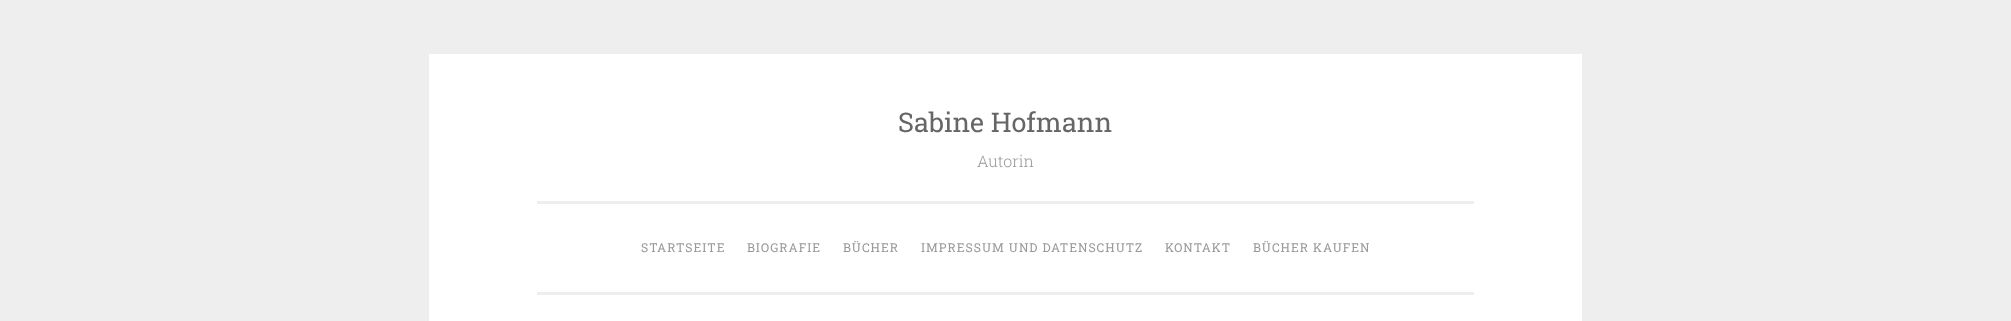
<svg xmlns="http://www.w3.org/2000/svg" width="2011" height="321">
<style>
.a{font:27px Roboto Slab;fill:#666}
.b{font:300 16px Roboto Slab;fill:#999}
.c{font:12.2px Roboto Slab;letter-spacing:1px;fill:#999}
</style>
<rect width="100%" height="100%" fill="#eee"/>
<path fill="#fff" d="M429 54h1153v267H429z"/>
<path fill="#eee" d="M537 292h937v3H537z"/>
<path fill="#eee" d="M537 201h937v3H537z"/>
<text class="a" x="898" y="132">Sabine Hofmann</text>
<text class="b" x="977" y="167">Autorin</text>
<text class="c" x="641" y="252">STARTSEITE</text>
<text class="c" x="747" y="252">BIOGRAFIE</text>
<text class="c" x="843" y="252">BÜCHER</text>
<text class="c" x="921" y="252">IMPRESSUM UND DATENSCHUTZ</text>
<text class="c" x="1165" y="252">KONTAKT</text>
<text class="c" x="1253" y="252">BÜCHER KAUFEN</text>
</svg>
